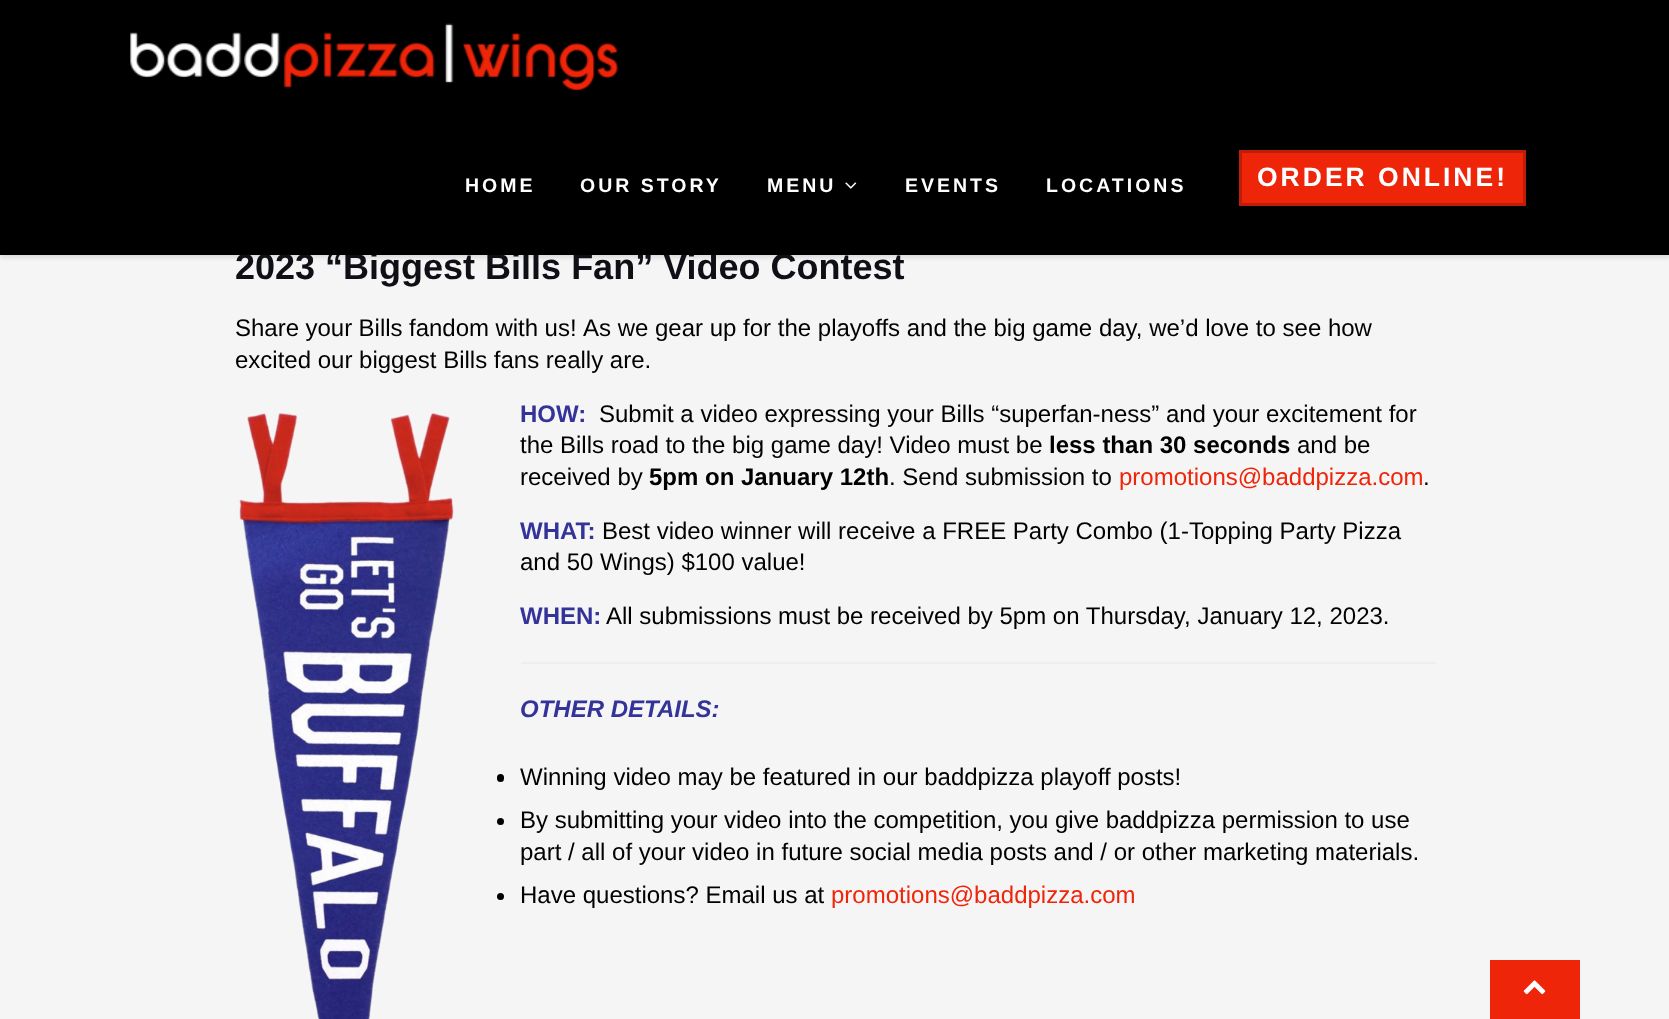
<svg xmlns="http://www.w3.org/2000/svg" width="1669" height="1019">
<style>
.a{font:bold 36px Liberation Sans;fill:#0f0f16}
.b{font:bold 19.5px Liberation Sans;letter-spacing:3px;fill:#fff}
.c{font:bold 26.5px Liberation Sans;letter-spacing:3px;fill:#fff}
.d{font:24px Liberation Sans;fill:#000}
.e{font:bold 24px Liberation Sans;fill:#339}
.f{font:bold 24px Liberation Sans;fill:#000}
.g{font:24px Liberation Sans;fill:#ef250a}
.h{font:italic bold 24px Liberation Sans;fill:#339}
</style>
<rect width="100%" height="100%" fill="#f5f5f5"/>
<path fill="#0000001a" filter="blur(2px)" d="M0 3h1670v255H0z"/>
<image href="3.png" x="239" y="413" width="215" height="606"/>
<path fill="#eee" d="M521 662h915v2H521z"/>
<rect fill="#000" x="497" y="774" width="7" height="8" rx="3.5"/>
<circle fill="#000" cx="500.5" cy="821.5" r="3.5"/>
<circle fill="#000" cx="500.5" cy="896.5" r="3.5"/>
<path fill="#ef250a" d="M1490 960h90v59H1490z"/>
<image href="4.png" x="1523" y="980" width="23" height="15"/>
<text class="a" x="235" y="279">2023 “Biggest Bills Fan” Video Contest</text>
<path fill="#000" d="M0 0h1669v255H0z"/>
<text class="b" x="1046" y="192">LOCATIONS</text>
<text class="b" x="905" y="192">EVENTS</text>
<image href="2.png" x="845" y="182" width="12" height="7"/>
<text class="b" x="767" y="192">MENU</text>
<text class="b" x="580" y="192">OUR STORY</text>
<text class="b" x="465" y="192">HOME</text>
<path fill="#ef250a" stroke="#be1d08" stroke-width="3" d="M1240.5 151.5h284v53H1240.5z"/>
<text class="c" x="1257" y="186">ORDER ONLINE!</text>
<image href="1.png" x="130" y="23" width="488" height="68"/>
<text class="d" x="235" y="336" word-spacing="-0.25">Share your Bills fandom with us!</text>
<text class="d" x="583" y="336">As we gear up for the playoffs and the big game day, we’d love to see how</text>
<text class="d" x="235" y="368">excited our biggest Bills fans really are.</text>
<text class="e" x="520" y="422">HOW:</text>
<text class="d" x="599" y="422">Submit a video expressing your Bills “superfan-ness” and your excitement for</text>
<text class="d" x="520" y="453">the Bills road to the big game day! Video must be</text>
<text class="f" x="1049" y="453">less than 30 seconds</text>
<text class="d" x="1297" y="453">and be</text>
<text class="d" x="520" y="485">received by</text>
<text class="f" x="649" y="485">5pm on January 12th</text>
<text class="d" x="889" y="485">. Send submission to</text>
<text class="g" x="1119" y="485">promotions@baddpizza.com</text>
<text class="d" x="1423" y="485">.</text>
<text class="e" x="520" y="539">WHAT:</text>
<text class="d" x="602" y="539">Best video winner will receive a FREE Party Combo (1-Topping Party Pizza</text>
<text class="d" x="520" y="570">and 50 Wings) $100 value!</text>
<text class="e" x="520" y="624">WHEN:</text>
<text class="d" x="606" y="624">All submissions must be received by 5pm on Thursday, January 12, 2023.</text>
<text class="h" x="520" y="717">OTHER DETAILS:</text>
<text class="d" x="520" y="785">Winning video may be featured in our baddpizza playoff posts!</text>
<text class="d" x="520" y="828">By submitting your video into the competition, you give baddpizza permission to use</text>
<text class="d" x="520" y="860">part / all of your video in future social media posts and / or other marketing materials.</text>
<text class="d" x="520" y="903">Have questions? Email us at</text>
<text class="g" x="831" y="903">promotions@baddpizza.com</text>
</svg>
